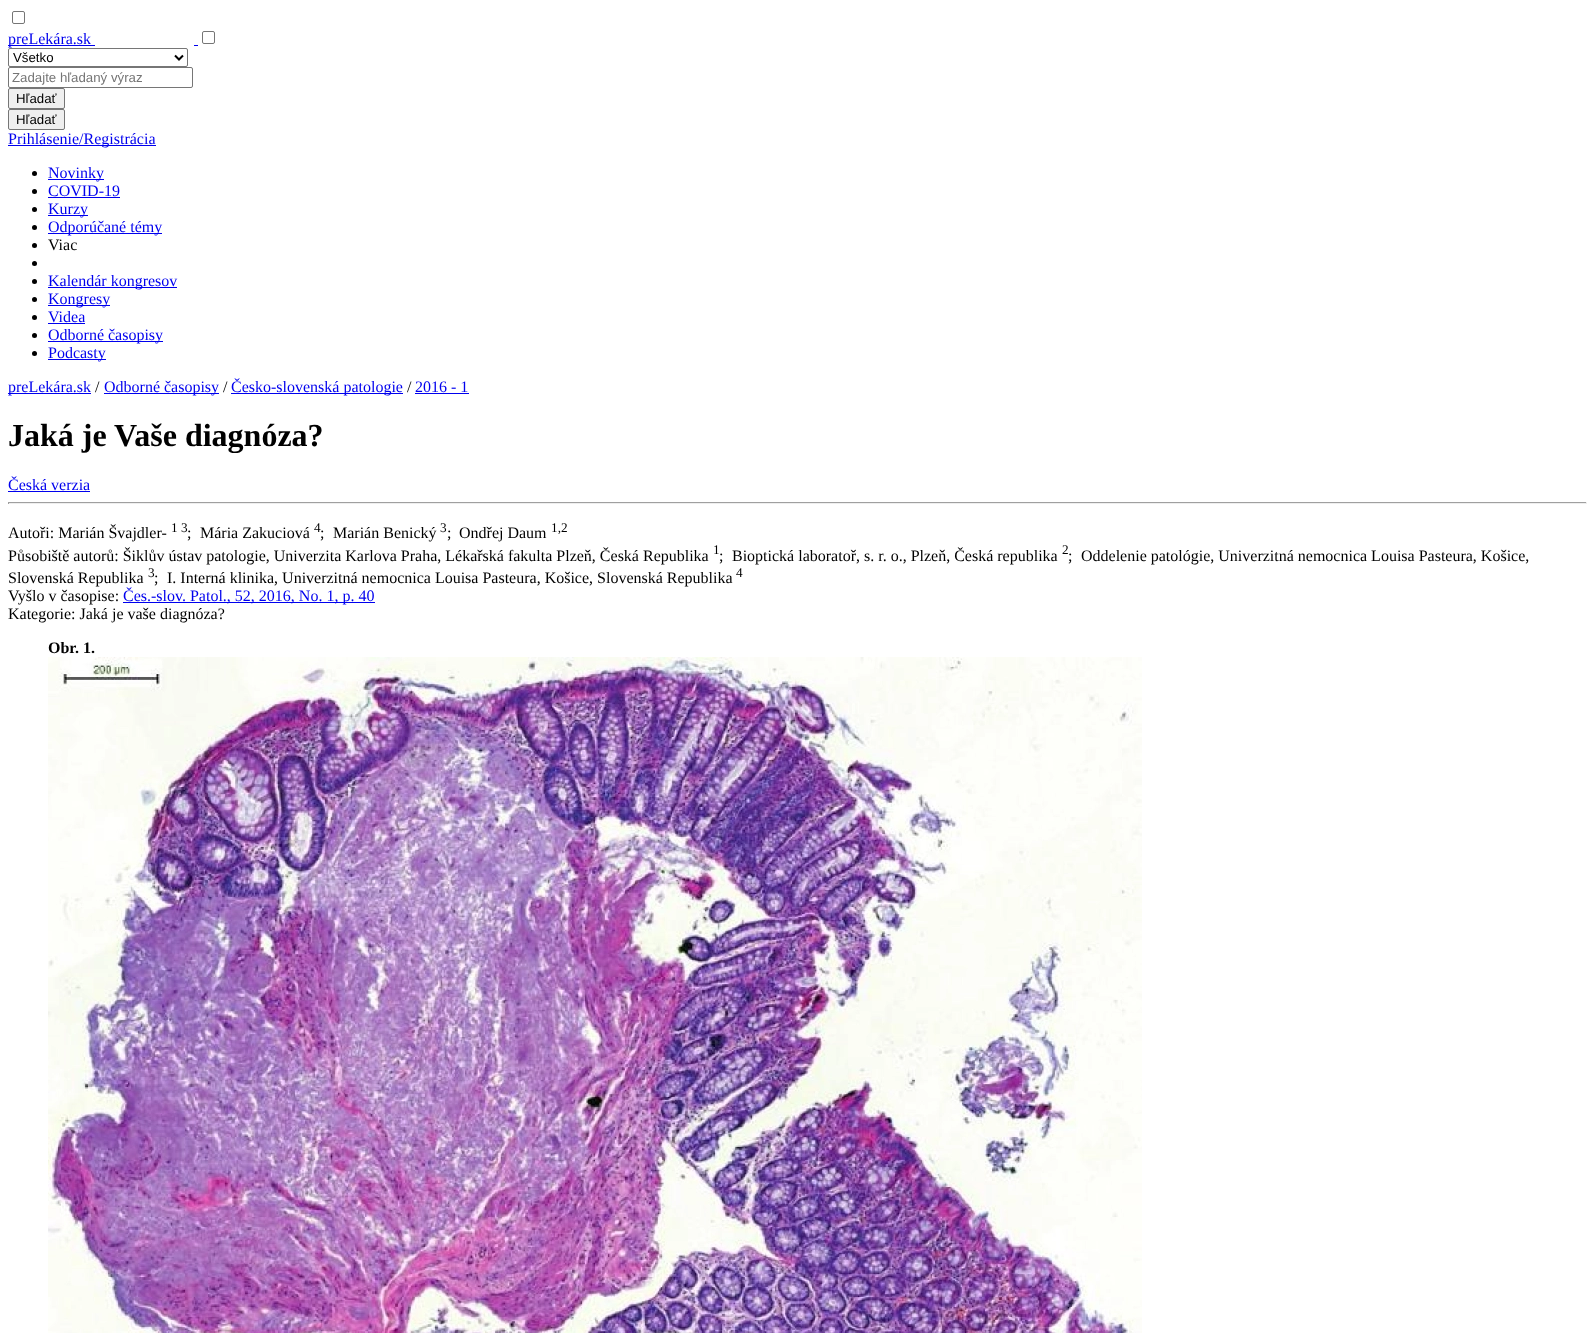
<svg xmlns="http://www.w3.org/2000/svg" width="1595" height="1333">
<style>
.a{font:16px Liberation Serif;fill:#00e}
.b{font:13.25px Liberation Sans;fill:#000}
.c{font:13.25px Liberation Sans;fill:#757575}
.d{font:16px Liberation Serif;fill:#000}
.e{font:bold 32px Liberation Serif;fill:#000}
.f{font:13.25px Liberation Serif;fill:#000}
.g{font:bold 16px Liberation Serif;fill:#000}
</style>
<rect width="100%" height="100%" fill="#fff"/>
<rect fill="none" stroke="#767676" x="12.5" y="11.5" width="12" height="12" rx="1.5"/>
<path fill="#00e" d="M8 45h87v1H8z"/>
<path fill="#00e" d="M194 45h4v1H194z"/>
<rect fill="none" stroke="#767676" x="202.5" y="31.5" width="12" height="12" rx="1.5"/>
<rect fill="none" stroke="#767676" x="8.5" y="48.5" width="179" height="18" rx="1.5"/>
<path fill="none" stroke="#000" stroke-width="2" d="M175 55.5l4 4l4-4"/>
<rect fill="none" stroke="#767676" x="8.5" y="67.5" width="184" height="20" rx="1.5"/>
<rect fill="#efefef" stroke="#767676" x="8.5" y="88.5" width="56" height="20" rx="1.5"/>
<rect fill="#efefef" stroke="#767676" x="8.5" y="109.5" width="56" height="20" rx="1.5"/>
<path fill="#00e" d="M8 145h148v1H8z"/>
<circle fill="#000" cx="34.5" cy="173.5" r="2.5"/>
<path fill="#00e" d="M48 179h56v1H48z"/>
<circle fill="#000" cx="34.5" cy="191.5" r="2.5"/>
<path fill="#00e" d="M48 197h72v1H48z"/>
<circle fill="#000" cx="34.5" cy="209.5" r="2.5"/>
<path fill="#00e" d="M48 215h40v1H48z"/>
<circle fill="#000" cx="34.5" cy="227.5" r="2.5"/>
<path fill="#00e" d="M48 233h114v1H48z"/>
<circle fill="#000" cx="34.5" cy="245.5" r="2.5"/>
<circle fill="#000" cx="34.5" cy="263.5" r="2.5"/>
<circle fill="#000" cx="34.5" cy="281.5" r="2.5"/>
<path fill="#00e" d="M48 287h129v1H48z"/>
<circle fill="#000" cx="34.5" cy="299.5" r="2.5"/>
<path fill="#00e" d="M48 305h62v1H48z"/>
<circle fill="#000" cx="34.5" cy="317.5" r="2.5"/>
<path fill="#00e" d="M48 323h37v1H48z"/>
<circle fill="#000" cx="34.5" cy="335.5" r="2.5"/>
<path fill="#00e" d="M48 341h115v1H48z"/>
<circle fill="#000" cx="34.5" cy="353.5" r="2.5"/>
<path fill="#00e" d="M48 359h58v1H48z"/>
<path fill="#00e" d="M8 393h83v1H8z"/>
<path fill="#00e" d="M104 393h115v1H104z"/>
<path fill="#00e" d="M231 393h172v1H231z"/>
<path fill="#00e" d="M415 393h54v1H415z"/>
<path fill="#00e" d="M8 491h82v1H8z"/>
<path fill="#9f9f9f" d="M8 502h1579v1H8z"/>
<path fill="#eee" d="M1586 502h1v2H1586z"/>
<path fill="#eee" d="M8 503h1579v1H8z"/>
<path fill="#9f9f9f" d="M8 502h1v2H8z"/>
<path fill="#00e" d="M123 602h252v1H123z"/>
<image href="1.png" x="48" y="657" width="1094" height="676"/>
<text class="a" x="8" y="44">preLekára.sk</text>
<text class="b" x="13" y="62">Všetko</text>
<text class="c" x="12" y="82">Zadajte hľadaný výraz</text>
<text class="b" x="16" y="103">Hľadať</text>
<text class="b" x="16" y="124">Hľadať</text>
<text class="a" x="8" y="144">Prihlásenie/Registrácia</text>
<text class="a" x="48" y="178">Novinky</text>
<text class="a" x="48" y="196">COVID-19</text>
<text class="a" x="48" y="214">Kurzy</text>
<text class="a" x="48" y="232">Odporúčané témy</text>
<text class="d" x="48" y="250">Viac</text>
<text class="a" x="48" y="286">Kalendár kongresov</text>
<text class="a" x="48" y="304">Kongresy</text>
<text class="a" x="48" y="322">Videa</text>
<text class="a" x="48" y="340">Odborné časopisy</text>
<text class="a" x="48" y="358">Podcasty</text>
<text class="a" x="8" y="392">preLekára.sk</text>
<text class="d" x="95" y="392">/</text>
<text class="a" x="104" y="392">Odborné časopisy</text>
<text class="d" x="223" y="392">/</text>
<text class="a" x="231" y="392">Česko-slovenská patologie</text>
<text class="d" x="407" y="392">/</text>
<text class="a" x="415" y="392">2016 - 1</text>
<text class="e" x="8" y="446">Jaká je Vaše diagnóza?</text>
<text class="a" x="8" y="490">Česká verzia</text>
<text class="d" x="8" y="538">Autoři: Marián Švajdler-</text>
<text class="f" x="171" y="532">1 3</text>
<text class="d" x="187" y="538">;</text>
<text class="d" x="200" y="538">Mária Zakuciová</text>
<text class="f" x="314" y="532">4</text>
<text class="d" x="320" y="538">;</text>
<text class="d" x="333" y="538">Marián Benický</text>
<text class="f" x="440" y="532">3</text>
<text class="d" x="447" y="538">;</text>
<text class="d" x="459" y="538">Ondřej Daum</text>
<text class="f" x="551" y="532">1,2</text>
<text class="d" x="8" y="561">Působiště autorů: Šiklův ústav patologie, Univerzita Karlova Praha, Lékařská fakulta Plzeň, Česká Republika</text>
<text class="f" x="713" y="554">1</text>
<text class="d" x="719" y="561">;</text>
<text class="d" x="732" y="561">Bioptická laboratoř, s. r. o., Plzeň, Česká republika</text>
<text class="f" x="1062" y="554">2</text>
<text class="d" x="1068" y="561">;</text>
<text class="d" x="1081" y="561">Oddelenie patológie, Univerzitná nemocnica Louisa Pasteura, Košice,</text>
<text class="d" x="8" y="583">Slovenská Republika</text>
<text class="f" x="148" y="577">3</text>
<text class="d" x="154" y="583">;</text>
<text class="d" x="167" y="583">I. Interná klinika, Univerzitná nemocnica Louisa Pasteura, Košice, Slovenská Republika</text>
<text class="f" x="736" y="577">4</text>
<text class="d" x="8" y="601">Vyšlo v časopise:</text>
<text class="a" x="123" y="601">Čes.-slov. Patol., 52, 2016, No. 1, p. 40</text>
<text class="d" x="8" y="619">Kategorie: Jaká je vaše diagnóza?</text>
<text class="g" x="48" y="653">Obr. 1.</text>
</svg>
